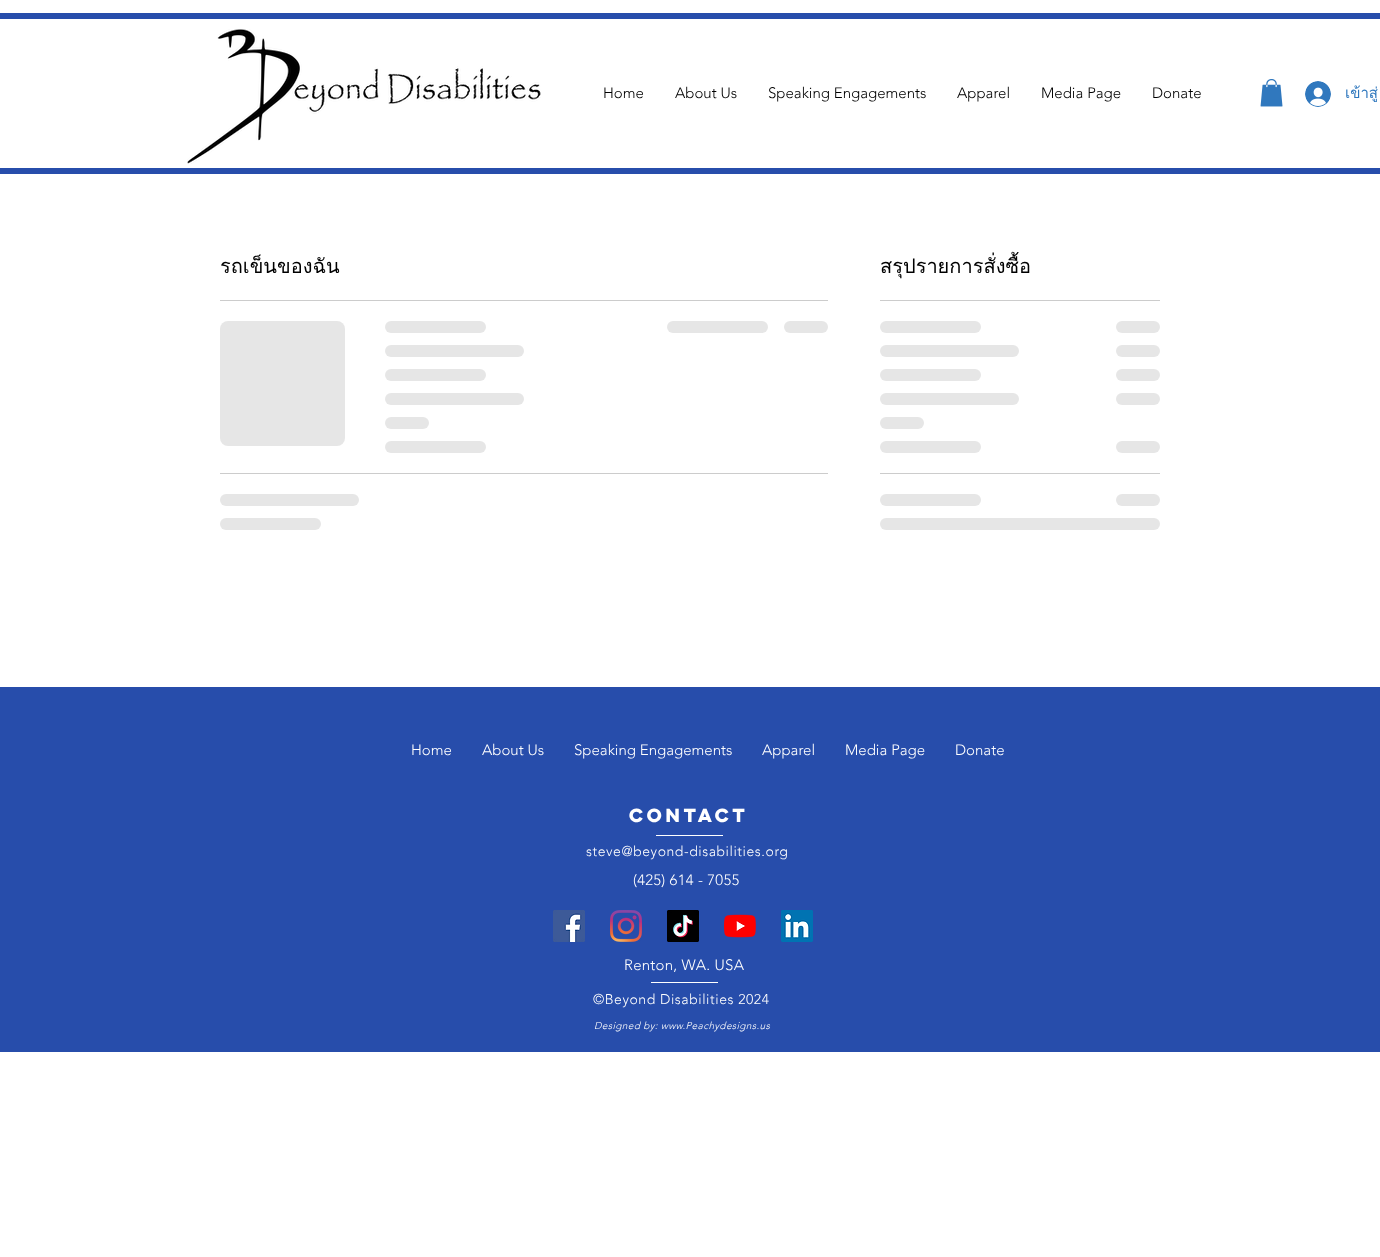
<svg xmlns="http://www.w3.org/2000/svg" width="1380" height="1257">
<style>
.a{font:300 15px 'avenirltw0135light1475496';fill:#000}
.b{font:15px Loma;fill:#3078be}
.c{font:20px Loma;fill:#000}
.d{font:300 15px 'avenirltw0135light1475496';fill:#fff}
.e{font:bold 17px 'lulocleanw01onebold';fill:#fff}
.f{font:300 14px 'avenirltw0135light1475496';letter-spacing:0.55px;fill:#fff}
.g{font:300 15px 'avenirltw0135light1475496';letter-spacing:0.25px;fill:#fff}
.h{font:italic 300 10px 'avenirltw0135light1475496';letter-spacing:0.4px;fill:#fff}
</style>
<defs>
<linearGradient id="g1" gradientUnits="userSpaceOnUse" x1="220" y1="384" x2="720" y2="384"><stop offset="0.25" stop-color="#e6e6e6"/><stop offset="0.37" stop-color="#ccc"/><stop offset="0.63" stop-color="#e6e6e6"/></linearGradient>
<linearGradient id="g2" gradientUnits="userSpaceOnUse" x1="385" y1="327" x2="789" y2="327"><stop offset="0.25" stop-color="#e6e6e6"/><stop offset="0.37" stop-color="#ccc"/><stop offset="0.63" stop-color="#e6e6e6"/></linearGradient>
<linearGradient id="g3" gradientUnits="userSpaceOnUse" x1="385" y1="351" x2="941" y2="351"><stop offset="0.25" stop-color="#e6e6e6"/><stop offset="0.37" stop-color="#ccc"/><stop offset="0.63" stop-color="#e6e6e6"/></linearGradient>
<linearGradient id="g4" gradientUnits="userSpaceOnUse" x1="385" y1="375" x2="789" y2="375"><stop offset="0.25" stop-color="#e6e6e6"/><stop offset="0.37" stop-color="#ccc"/><stop offset="0.63" stop-color="#e6e6e6"/></linearGradient>
<linearGradient id="g5" gradientUnits="userSpaceOnUse" x1="385" y1="399" x2="941" y2="399"><stop offset="0.25" stop-color="#e6e6e6"/><stop offset="0.37" stop-color="#ccc"/><stop offset="0.63" stop-color="#e6e6e6"/></linearGradient>
<linearGradient id="g6" gradientUnits="userSpaceOnUse" x1="385" y1="423" x2="561" y2="423"><stop offset="0.25" stop-color="#e6e6e6"/><stop offset="0.37" stop-color="#ccc"/><stop offset="0.63" stop-color="#e6e6e6"/></linearGradient>
<linearGradient id="g7" gradientUnits="userSpaceOnUse" x1="385" y1="447" x2="789" y2="447"><stop offset="0.25" stop-color="#e6e6e6"/><stop offset="0.37" stop-color="#ccc"/><stop offset="0.63" stop-color="#e6e6e6"/></linearGradient>
<linearGradient id="g8" gradientUnits="userSpaceOnUse" x1="667" y1="327" x2="1071" y2="327"><stop offset="0.25" stop-color="#e6e6e6"/><stop offset="0.37" stop-color="#ccc"/><stop offset="0.63" stop-color="#e6e6e6"/></linearGradient>
<linearGradient id="g9" gradientUnits="userSpaceOnUse" x1="784" y1="327" x2="960" y2="327"><stop offset="0.25" stop-color="#e6e6e6"/><stop offset="0.37" stop-color="#ccc"/><stop offset="0.63" stop-color="#e6e6e6"/></linearGradient>
<linearGradient id="g10" gradientUnits="userSpaceOnUse" x1="220" y1="500" x2="776" y2="500"><stop offset="0.25" stop-color="#e6e6e6"/><stop offset="0.37" stop-color="#ccc"/><stop offset="0.63" stop-color="#e6e6e6"/></linearGradient>
<linearGradient id="g11" gradientUnits="userSpaceOnUse" x1="220" y1="524" x2="624" y2="524"><stop offset="0.25" stop-color="#e6e6e6"/><stop offset="0.37" stop-color="#ccc"/><stop offset="0.63" stop-color="#e6e6e6"/></linearGradient>
<linearGradient id="g12" gradientUnits="userSpaceOnUse" x1="880" y1="327" x2="1284" y2="327"><stop offset="0.25" stop-color="#e6e6e6"/><stop offset="0.37" stop-color="#ccc"/><stop offset="0.63" stop-color="#e6e6e6"/></linearGradient>
<linearGradient id="g13" gradientUnits="userSpaceOnUse" x1="1116" y1="327" x2="1292" y2="327"><stop offset="0.25" stop-color="#e6e6e6"/><stop offset="0.37" stop-color="#ccc"/><stop offset="0.63" stop-color="#e6e6e6"/></linearGradient>
<linearGradient id="g14" gradientUnits="userSpaceOnUse" x1="880" y1="351" x2="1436" y2="351"><stop offset="0.25" stop-color="#e6e6e6"/><stop offset="0.37" stop-color="#ccc"/><stop offset="0.63" stop-color="#e6e6e6"/></linearGradient>
<linearGradient id="g15" gradientUnits="userSpaceOnUse" x1="1116" y1="351" x2="1292" y2="351"><stop offset="0.25" stop-color="#e6e6e6"/><stop offset="0.37" stop-color="#ccc"/><stop offset="0.63" stop-color="#e6e6e6"/></linearGradient>
<linearGradient id="g16" gradientUnits="userSpaceOnUse" x1="880" y1="375" x2="1284" y2="375"><stop offset="0.25" stop-color="#e6e6e6"/><stop offset="0.37" stop-color="#ccc"/><stop offset="0.63" stop-color="#e6e6e6"/></linearGradient>
<linearGradient id="g17" gradientUnits="userSpaceOnUse" x1="1116" y1="375" x2="1292" y2="375"><stop offset="0.25" stop-color="#e6e6e6"/><stop offset="0.37" stop-color="#ccc"/><stop offset="0.63" stop-color="#e6e6e6"/></linearGradient>
<linearGradient id="g18" gradientUnits="userSpaceOnUse" x1="880" y1="399" x2="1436" y2="399"><stop offset="0.25" stop-color="#e6e6e6"/><stop offset="0.37" stop-color="#ccc"/><stop offset="0.63" stop-color="#e6e6e6"/></linearGradient>
<linearGradient id="g19" gradientUnits="userSpaceOnUse" x1="1116" y1="399" x2="1292" y2="399"><stop offset="0.25" stop-color="#e6e6e6"/><stop offset="0.37" stop-color="#ccc"/><stop offset="0.63" stop-color="#e6e6e6"/></linearGradient>
<linearGradient id="g20" gradientUnits="userSpaceOnUse" x1="880" y1="423" x2="1056" y2="423"><stop offset="0.25" stop-color="#e6e6e6"/><stop offset="0.37" stop-color="#ccc"/><stop offset="0.63" stop-color="#e6e6e6"/></linearGradient>
<linearGradient id="g21" gradientUnits="userSpaceOnUse" x1="880" y1="447" x2="1284" y2="447"><stop offset="0.25" stop-color="#e6e6e6"/><stop offset="0.37" stop-color="#ccc"/><stop offset="0.63" stop-color="#e6e6e6"/></linearGradient>
<linearGradient id="g22" gradientUnits="userSpaceOnUse" x1="1116" y1="447" x2="1292" y2="447"><stop offset="0.25" stop-color="#e6e6e6"/><stop offset="0.37" stop-color="#ccc"/><stop offset="0.63" stop-color="#e6e6e6"/></linearGradient>
<linearGradient id="g23" gradientUnits="userSpaceOnUse" x1="880" y1="500" x2="1284" y2="500"><stop offset="0.25" stop-color="#e6e6e6"/><stop offset="0.37" stop-color="#ccc"/><stop offset="0.63" stop-color="#e6e6e6"/></linearGradient>
<linearGradient id="g24" gradientUnits="userSpaceOnUse" x1="1116" y1="500" x2="1292" y2="500"><stop offset="0.25" stop-color="#e6e6e6"/><stop offset="0.37" stop-color="#ccc"/><stop offset="0.63" stop-color="#e6e6e6"/></linearGradient>
<linearGradient id="g25" gradientUnits="userSpaceOnUse" x1="880" y1="524" x2="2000" y2="524"><stop offset="0.25" stop-color="#e6e6e6"/><stop offset="0.37" stop-color="#ccc"/><stop offset="0.63" stop-color="#e6e6e6"/></linearGradient>
</defs>
<rect width="100%" height="100%" fill="#fff"/>
<path fill="#274dab" d="M0 13h1380v6H0z"/>
<path fill="#274dab" d="M0 168h1380v6H0z"/>
<image href="1.png" x="187" y="29" width="354" height="135"/>
<image href="2.png" x="1260" y="79" width="23" height="28"/>
<image href="3.png" x="1305" y="81" width="26" height="26"/>
<path fill="#ccc" d="M220 300h608v1H220z"/>
<rect fill="url(#g1)" x="220" y="321" width="125" height="125" rx="8"/>
<rect fill="url(#g2)" x="385" y="321" width="101" height="12" rx="6"/>
<rect fill="url(#g3)" x="385" y="345" width="139" height="12" rx="6"/>
<rect fill="url(#g4)" x="385" y="369" width="101" height="12" rx="6"/>
<rect fill="url(#g5)" x="385" y="393" width="139" height="12" rx="6"/>
<rect fill="url(#g6)" x="385" y="417" width="44" height="12" rx="6"/>
<rect fill="url(#g7)" x="385" y="441" width="101" height="12" rx="6"/>
<rect fill="url(#g8)" x="667" y="321" width="101" height="12" rx="6"/>
<rect fill="url(#g9)" x="784" y="321" width="44" height="12" rx="6"/>
<path fill="#ccc" d="M220 473h608v1H220z"/>
<rect fill="url(#g10)" x="220" y="494" width="139" height="12" rx="6"/>
<rect fill="url(#g11)" x="220" y="518" width="101" height="12" rx="6"/>
<path fill="#ccc" d="M880 300h280v1H880z"/>
<rect fill="url(#g12)" x="880" y="321" width="101" height="12" rx="6"/>
<rect fill="url(#g13)" x="1116" y="321" width="44" height="12" rx="6"/>
<rect fill="url(#g14)" x="880" y="345" width="139" height="12" rx="6"/>
<rect fill="url(#g15)" x="1116" y="345" width="44" height="12" rx="6"/>
<rect fill="url(#g16)" x="880" y="369" width="101" height="12" rx="6"/>
<rect fill="url(#g17)" x="1116" y="369" width="44" height="12" rx="6"/>
<rect fill="url(#g18)" x="880" y="393" width="139" height="12" rx="6"/>
<rect fill="url(#g19)" x="1116" y="393" width="44" height="12" rx="6"/>
<rect fill="url(#g20)" x="880" y="417" width="44" height="12" rx="6"/>
<rect fill="url(#g21)" x="880" y="441" width="101" height="12" rx="6"/>
<rect fill="url(#g22)" x="1116" y="441" width="44" height="12" rx="6"/>
<path fill="#ccc" d="M880 473h280v1H880z"/>
<rect fill="url(#g23)" x="880" y="494" width="101" height="12" rx="6"/>
<rect fill="url(#g24)" x="1116" y="494" width="44" height="12" rx="6"/>
<rect fill="url(#g25)" x="880" y="518" width="280" height="12" rx="6"/>
<path fill="#274dab" d="M0 687h1380v365H0z"/>
<path fill="#fff" d="M656 835h67v1H656z"/>
<image href="4.png" x="553" y="910" width="32" height="32"/>
<image href="5.png" x="610" y="910" width="32" height="32"/>
<image href="6.png" x="667" y="910" width="32" height="32"/>
<image href="7.png" x="724" y="914" width="32" height="24"/>
<image href="8.png" x="781" y="910" width="32" height="32"/>
<path fill="#fff" d="M651 982h67v1H651z"/>
<text class="a" x="603" y="98">Home</text>
<text class="a" x="675" y="98">About Us</text>
<text class="a" x="768" y="98">Speaking Engagements</text>
<text class="a" x="957" y="98">Apparel</text>
<text class="a" x="1041" y="98">Media Page</text>
<text class="a" x="1152" y="98">Donate</text>
<text class="b" x="1345" y="98">เข้าสู่</text>
<text class="c" x="220" y="273">รถเข็นของฉัน</text>
<text class="c" x="880" y="273">สรุปรายการสั่งซื้อ</text>
<text class="d" x="411" y="755">Home</text>
<text class="d" x="482" y="755">About Us</text>
<text class="d" x="574" y="755">Speaking Engagements</text>
<text class="d" x="762" y="755">Apparel</text>
<text class="d" x="845" y="755">Media Page</text>
<text class="d" x="955" y="755">Donate</text>
<text class="e" x="629" y="822">Contact</text>
<text class="f" x="586" y="856">steve@beyond-disabilities.org</text>
<text class="g" x="633" y="885">(425) 614 - 7055</text>
<text class="g" x="624" y="970">Renton, WA. USA</text>
<text class="f" x="593" y="1004">©Beyond Disabilities 2024</text>
<text class="h" x="594" y="1029">Designed by: www.Peachydesigns.us</text>
</svg>
